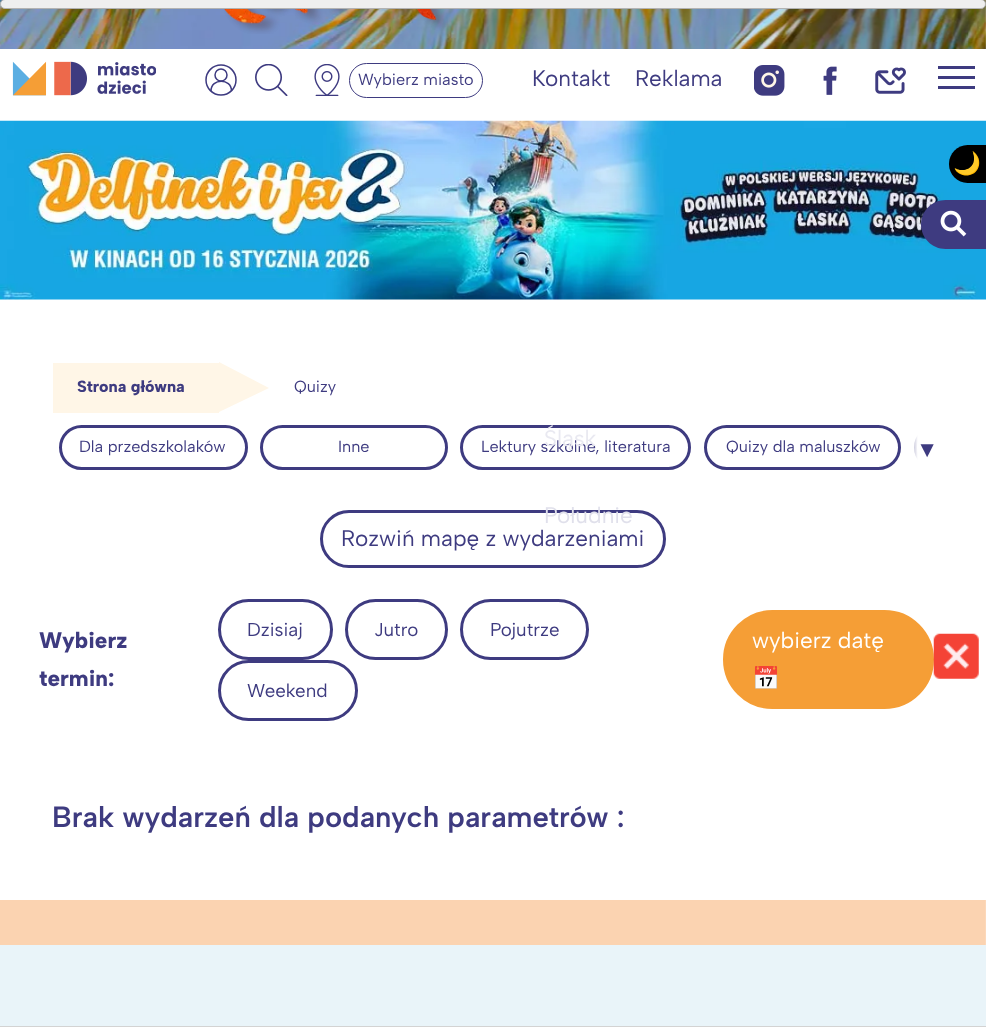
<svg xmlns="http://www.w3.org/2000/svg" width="986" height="1027">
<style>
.a{font:16.25px Albert Sans;fill:#3e3b80}
.b{font:22.5px Albert Sans;fill:#3e3b80}
.c{font:22.5px Noto Color Emoji;fill:#fff}
.d{font:800 16.25px Albert Sans;fill:#3e3b80}
.e{font:22.5px Liberation Sans;fill:#3e3b80}
.f{font:800 22.5px Albert Sans;fill:#3e3b80}
.g{font:18.75px Albert Sans;fill:#3e3b80}
.h{font:22.5px Albert Sans;fill:#fff}
.i{font:600 29.25px Albert Sans;fill:#3e3b80}
.j{font:22.5px Albert Sans;fill:#e9e9f1}
.k{font:22.5px Albert Sans;fill:#e0e0eb}
</style>
<defs>
<clipPath id="clip1"><path d="M53 419h881v57H53z"/></clipPath>
<linearGradient id="g1" gradientUnits="userSpaceOnUse" x1="940" y1="450" x2="903" y2="450"><stop offset="0.6" stop-color="#fff"/><stop offset="1" stop-color="#fff" stop-opacity="0"/></linearGradient>
</defs>
<rect width="100%" height="100%" fill="#fff"/>
<image href="1.png" x="0" y="0" width="986" height="945"/>
<rect fill="#efefef" stroke="#b2b2b2" x="0.5" y="-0.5" width="985" height="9" rx="4.5"/>
<image href="2.png" x="224" y="9" width="224" height="25"/>
<path fill="#fff" d="M0 49h986v851H0z"/>
<image href="3.png" x="12" y="61" width="144" height="35"/>
<circle fill="none" stroke="#3d3a80" stroke-width="1.5" cx="221" cy="80" r="15"/>
<path fill="none" stroke="#3d3a80" stroke-width="1.5" stroke-linejoin="round" d="M231.5 91c0-13-20.5-13-20.5 0"/>
<circle fill="none" stroke="#3d3a80" stroke-width="1.5" cx="221" cy="75" r="6"/>
<image href="4.png" x="255" y="64" width="33" height="32"/>
<image href="5.png" x="314" y="64" width="26" height="32"/>
<rect fill="none" stroke="#3e3b80" x="349.5" y="63.5" width="133" height="34" rx="17"/>
<image href="6.png" x="754" y="65" width="31" height="31"/>
<image href="7.png" x="823" y="66" width="14" height="29"/>
<image href="8.png" x="875" y="67" width="31" height="27"/>
<path fill="#3e3b80" d="M938 76h37v3H938z"/>
<path fill="#3e3b80" d="M938 66h37v3H938z"/>
<path fill="#3e3b80" d="M938 86h37v3H938z"/>
<image href="9.png" x="0" y="120" width="986" height="180"/>
<path fill="#000" d="M967.5 145h18.5v38h-18.5c-10 0-18.5-8.5-18.5-18.5v-1c0-10 8.5-18.5 18.5-18.5z"/>
<path fill="#3e3b80" d="M945.5 200h40.5v49h-40.5c-13.5 0-24.5-11-24.5-24.5c0-13.5 11-24.5 24.5-24.5z"/>
<image href="10.png" x="940" y="210" width="27" height="27"/>
<path fill="#fff6e7" d="M53 363h166v50H53z"/>
<path fill="#fff6e7" d="M219 412v-50l50 26z"/>
<rect fill="none" stroke="#3e3b80" stroke-width="3" x="60.5" y="426.5" width="186" height="42" rx="21"/>
<rect fill="none" stroke="#3e3b80" stroke-width="3" x="261.5" y="426.5" width="185" height="42" rx="21"/>
<rect fill="none" stroke="#3e3b80" stroke-width="3" x="461.5" y="426.5" width="228" height="42" rx="21"/>
<rect fill="none" stroke="#3e3b80" stroke-width="3" x="705.5" y="426.5" width="194" height="42" rx="21"/>
<g clip-path="url(#clip1)">
<rect fill="none" stroke="#3e3b80" stroke-width="3" x="915.5" y="426.5" width="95" height="42" rx="21"/>
</g>
<path fill="url(#g1)" d="M914 425h20v45H914z"/>
<rect fill="none" stroke="#3e3b80" stroke-width="3" x="321.5" y="511.5" width="343" height="55" rx="27.5"/>
<rect fill="none" stroke="#3e3b80" stroke-width="3" x="219.5" y="600.5" width="112" height="58" rx="29"/>
<rect fill="none" stroke="#3e3b80" stroke-width="3" x="346.5" y="600.5" width="100" height="58" rx="29"/>
<rect fill="none" stroke="#3e3b80" stroke-width="3" x="461.5" y="600.5" width="126" height="58" rx="29"/>
<rect fill="none" stroke="#3e3b80" stroke-width="3" x="219.5" y="661.5" width="137" height="58" rx="29"/>
<rect fill="#f59e36" stroke="#f59e36" stroke-width="3" x="724.5" y="611.5" width="208" height="96" rx="48"/>
<path fill="#e9f4f9" d="M0 945h986v81H0z"/>
<path fill="#d3d3d3" d="M0 1026h986v1H0z"/>
<image href="11.png" x="933" y="633" width="46" height="46"/>
<text class="a" x="358" y="85">Wybierz miasto</text>
<text class="b" x="532" y="86">Kontakt</text>
<text class="b" x="635" y="86">Reklama</text>
<text class="c" x="953" y="171">🌙</text>
<text class="d" x="77" y="392">Strona główna</text>
<text class="a" x="294" y="392">Quizy</text>
<text class="a" x="79" y="452">Dla przedszkolaków</text>
<text class="a" x="338" y="452">Inne</text>
<text class="a" x="481" y="452">Lektury szkolne, literatura</text>
<text class="a" x="726" y="452">Quizy dla maluszków</text>
<text class="e" x="916" y="457">▼</text>
<text class="b" x="341" y="546">Rozwiń mapę z wydarzeniami</text>
<text class="f" x="39" y="648">Wybierz</text>
<text class="f" x="39" y="686">termin:</text>
<text class="g" x="247" y="636">Dzisiaj</text>
<text class="g" x="374" y="636">Jutro</text>
<text class="g" x="490" y="636">Pojutrze</text>
<text class="g" x="247" y="697">Weekend</text>
<text class="h" x="752" y="648">wybierz datę</text>
<text class="c" x="752" y="686">📅</text>
<text class="i" x="52" y="827">Brak wydarzeń dla podanych parametrów :</text>
<text class="j" x="544" y="446">Śląsk</text>
<text class="k" x="544" y="523">Południe</text>
</svg>
